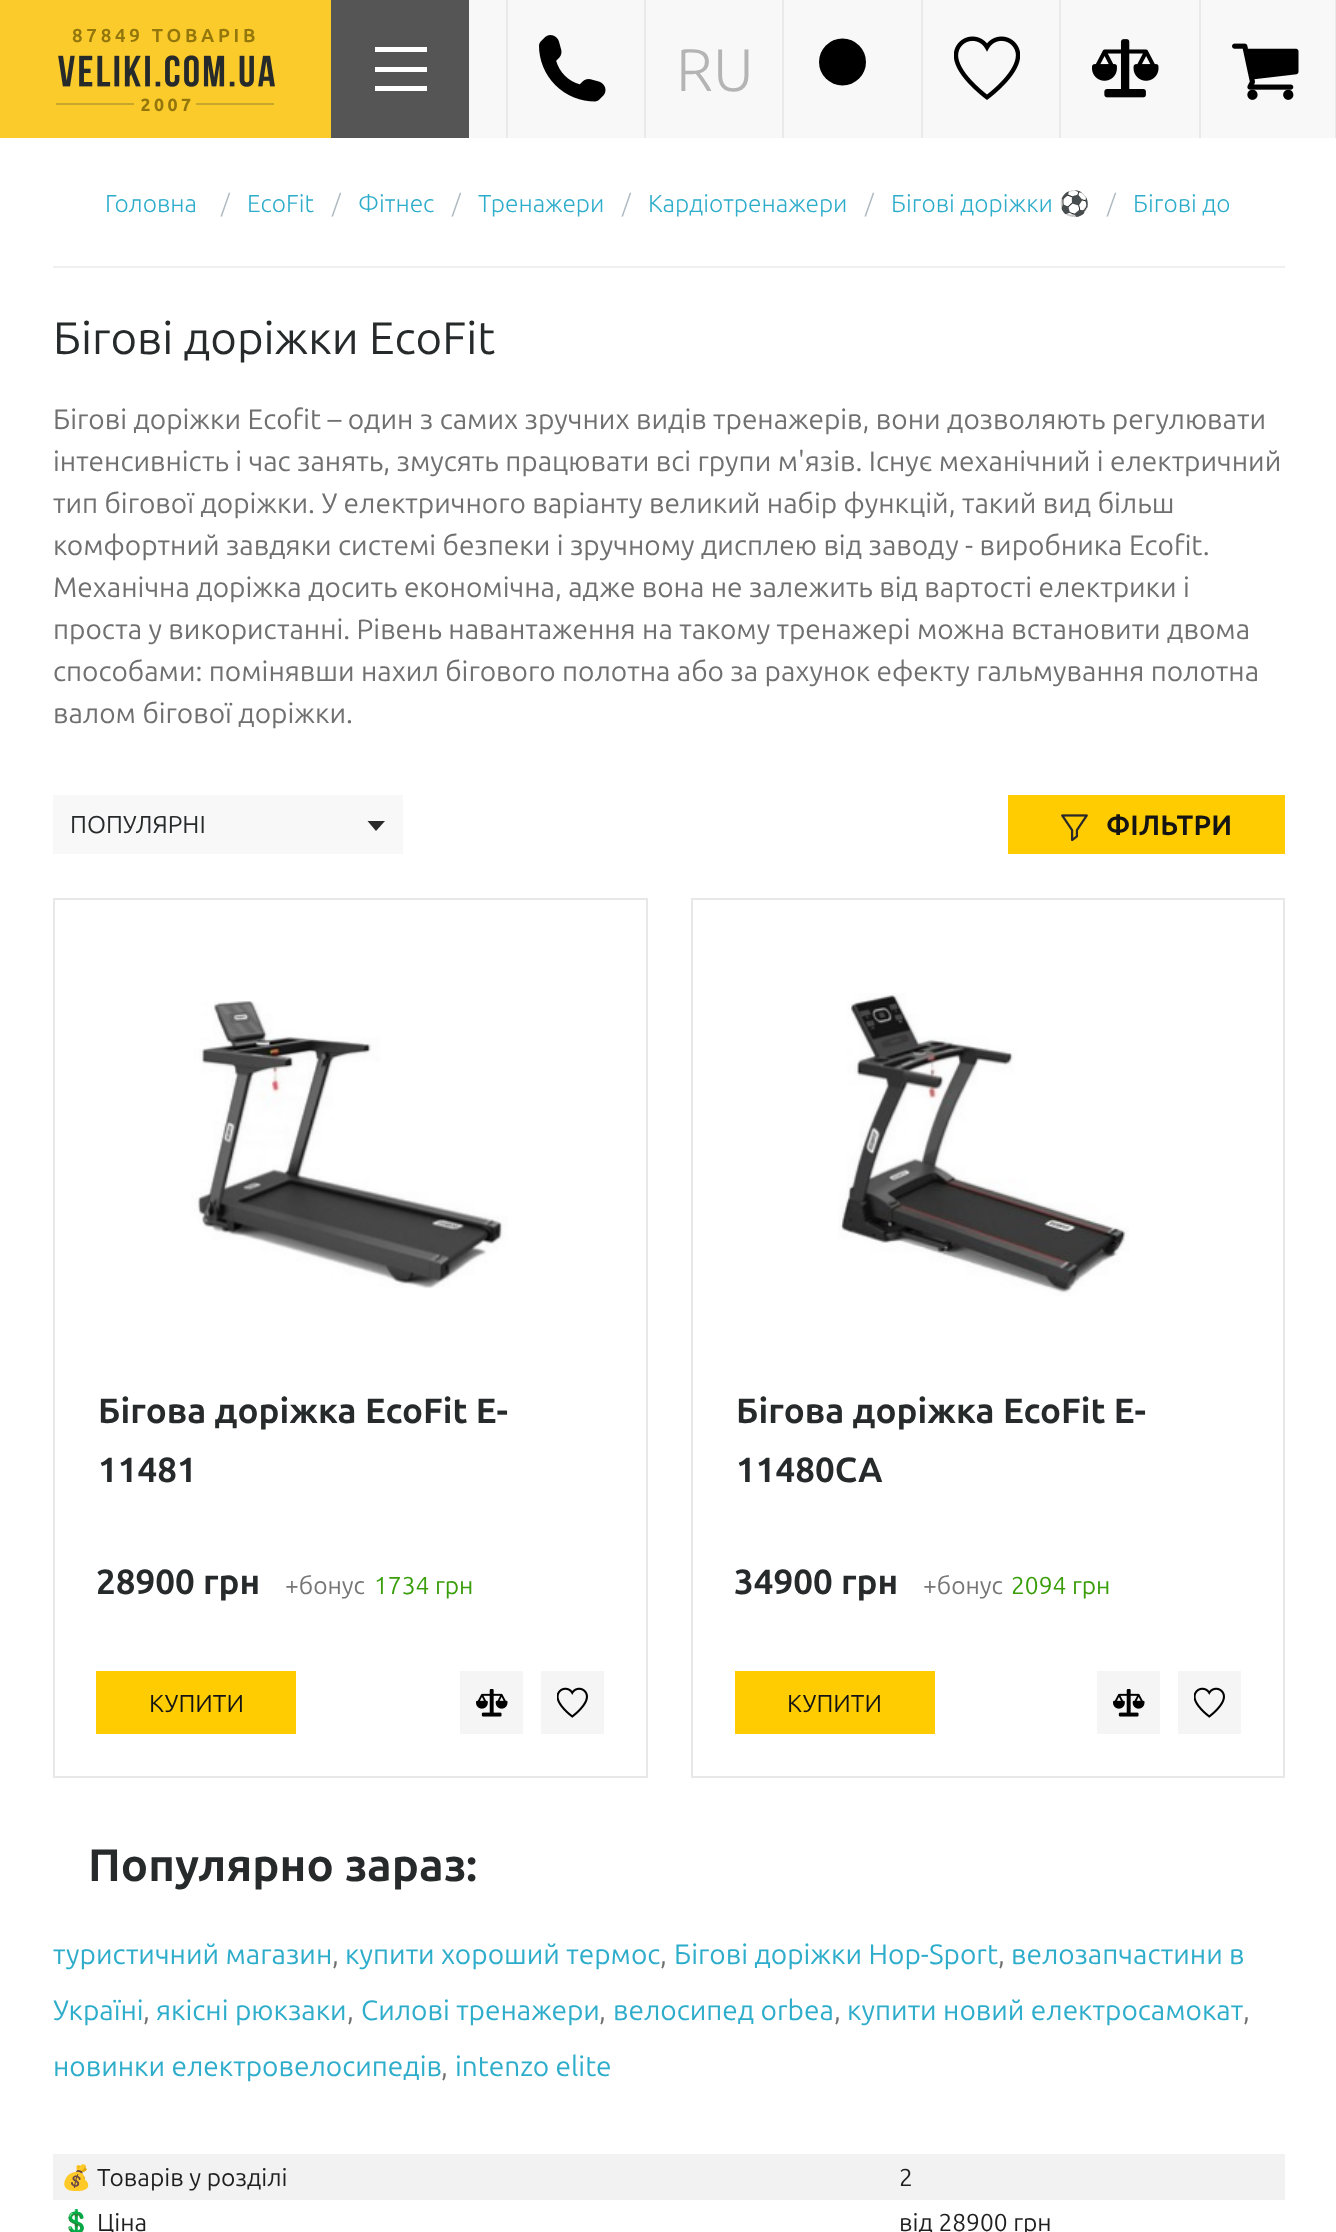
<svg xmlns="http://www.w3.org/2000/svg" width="1336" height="2232">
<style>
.a{font:bold 18.75px Ubuntu;letter-spacing:3.75px;fill:#93760c}
.b{font:300 60px Ubuntu;fill:#b4b4b4}
.c{font:300 24.5px Ubuntu;fill:#2eadcb}
.d{font:300 24.5px Ubuntu;fill:#afb9c0}
.e{font:24.5px 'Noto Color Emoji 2';fill:#2eadcb}
.f{font:45.5px Ubuntu;fill:#262a2b}
.g{font:28px Ubuntu;fill:#707070}
.h{font:24.5px Ubuntu;fill:#262a2b}
.i{font:bold 28px Ubuntu;fill:#141414}
.j{font:bold 35px Ubuntu;fill:#262a2b}
.k{font:24.5px Ubuntu;fill:#767676}
.l{font:24.5px Ubuntu;fill:#3a9e0b}
.m{font:24.5px Ubuntu;fill:#141414}
.n{font:bold 45.5px Ubuntu;fill:#262a2b}
.o{font:28px Ubuntu;fill:#2eadcb}
.p{font:24.5px Noto Color Emoji;fill:#1f1f1f}
.q{font:24.5px Ubuntu;fill:#1f1f1f}
</style>
<rect width="100%" height="100%" fill="#fff"/>
<path fill="#f8f8f8" d="M469 0h866v138H469z"/>
<path fill="#fbcb2c" d="M0 0h331v138H0z"/>
<image href="1.png" x="56" y="55" width="219" height="57"/>
<path fill="#555" d="M331 0h138v138H331z"/>
<path fill="#fff" d="M375 47h52v5H375z"/>
<path fill="#fff" d="M375 86h52v5H375z"/>
<path fill="#fff" d="M375 67h52v5H375z"/>
<path fill="#eaeaea" d="M506 0h2v138H506z"/>
<image href="2.png" x="539" y="35" width="67" height="67"/>
<path fill="#eaeaea" d="M1335 0h1v138H1335z"/>
<path fill="#eaeaea" d="M1199 0h2v138H1199z"/>
<image href="3.png" x="1232" y="43" width="67" height="57"/>
<path fill="#eaeaea" d="M644 0h2v138H644z"/>
<path fill="#eaeaea" d="M782 0h2v138H782z"/>
<circle fill="#000" cx="842.5" cy="62" r="23.5"/>
<path fill="#eaeaea" d="M921 0h2v138H921z"/>
<image href="4.png" x="954" y="36" width="66" height="64"/>
<path fill="#eaeaea" d="M1059 0h2v138H1059z"/>
<image href="5.png" x="1092" y="39" width="67" height="59"/>
<path fill="#f0f0f0" d="M53 266h1232v2H53z"/>
<path fill="#f8f8f8" d="M53 795h350v59H53z"/>
<path fill="#292929" d="M367.5 821h17.5l-9 10z"/>
<path fill="#ffcc01" d="M1008 795h277v59H1008z"/>
<image href="6.png" x="1061" y="814" width="27" height="28"/>
<path fill="none" stroke="#e8e8e8" stroke-width="2" d="M54 899h593v878H54z"/>
<image href="7.png" x="191" y="1001" width="317" height="288"/>
<path fill="#ffcc01" d="M96 1671h200v63H96z"/>
<path fill="#f5f5f5" d="M460 1671h63v63H460z"/>
<image href="8.png" x="476" y="1689" width="32" height="28"/>
<path fill="#f5f5f5" d="M541 1671h63v63H541z"/>
<image href="9.png" x="557" y="1687" width="31" height="31"/>
<path fill="none" stroke="#e8e8e8" stroke-width="2" d="M692 899h592v878H692z"/>
<image href="10.png" x="838" y="993" width="291" height="303"/>
<path fill="#ffcc01" d="M735 1671h200v63H735z"/>
<path fill="#f5f5f5" d="M1097 1671h63v63H1097z"/>
<image href="8.png" x="1113" y="1689" width="32" height="28"/>
<path fill="#f5f5f5" d="M1178 1671h63v63H1178z"/>
<image href="9.png" x="1194" y="1687" width="31" height="31"/>
<path fill="#f2f2f2" d="M53 2154h1232v46H53z"/>
<text class="a" x="72" y="42">87849 ТОВАРІВ</text>
<text class="b" x="676" y="91">RU</text>
<text class="c" x="105" y="212">Головна</text>
<text class="d" x="221" y="212">/</text>
<text class="c" x="247" y="212">EcoFit</text>
<text class="d" x="332" y="212">/</text>
<text class="c" x="358" y="212">Фітнес</text>
<text class="d" x="452" y="212">/</text>
<text class="c" x="478" y="212">Тренажери</text>
<text class="d" x="622" y="212">/</text>
<text class="c" x="648" y="212">Кардіотренажери</text>
<text class="d" x="865" y="212">/</text>
<text class="c" x="891" y="212">Бігові доріжки</text>
<text class="e" x="1059" y="212">⚽</text>
<text class="d" x="1107" y="212">/</text>
<text class="c" x="1133" y="212">Бігові до</text>
<text class="f" x="53" y="354">Бігові доріжки EcoFit</text>
<text class="g" x="53" y="429">Бігові доріжки Ecofit – один з самих зручних видів тренажерів, вони дозволяють регулювати</text>
<text class="g" x="53" y="471">інтенсивність і час занять, змусять працювати всі групи м'язів. Існує механічний і електричний</text>
<text class="g" x="53" y="513">тип бігової доріжки. У електричного варіанту великий набір функцій, такий вид більш</text>
<text class="g" x="53" y="555">комфортний завдяки системі безпеки і зручному дисплею від заводу - виробника Ecofit.</text>
<text class="g" x="53" y="597">Механічна доріжка досить економічна, адже вона не залежить від вартості електрики і</text>
<text class="g" x="53" y="639">проста у використанні. Рівень навантаження на такому тренажері можна встановити двома</text>
<text class="g" x="53" y="681">способами: помінявши нахил бігового полотна або за рахунок ефекту гальмування полотна</text>
<text class="g" x="53" y="723">валом бігової доріжки.</text>
<text class="h" x="70" y="833">ПОПУЛЯРНІ</text>
<text class="i" x="1106" y="835">ФІЛЬТРИ</text>
<text class="j" x="98" y="1423">Бігова доріжка EcoFit E-</text>
<text class="j" x="98" y="1482">11481</text>
<text class="j" x="96" y="1594">28900 грн</text>
<text class="k" x="285" y="1594">+бонус</text>
<text class="l" x="374" y="1594">1734 грн</text>
<text class="m" x="149" y="1712">КУПИТИ</text>
<text class="j" x="736" y="1423">Бігова доріжка EcoFit E-</text>
<text class="j" x="736" y="1482">11480CA</text>
<text class="j" x="734" y="1594">34900 грн</text>
<text class="k" x="923" y="1594">+бонус</text>
<text class="l" x="1011" y="1594">2094 грн</text>
<text class="m" x="787" y="1712">КУПИТИ</text>
<text class="n" x="88" y="1881">Популярно зараз:</text>
<text class="o" x="53" y="1964">туристичний магазин</text>
<text class="g" x="332" y="1964">,</text>
<text class="o" x="345" y="1964">купити хороший термос</text>
<text class="g" x="660" y="1964">,</text>
<text class="o" x="674" y="1964">Бігові доріжки Hop-Sport</text>
<text class="g" x="998" y="1964">,</text>
<text class="o" x="1011" y="1964">велозапчастини в</text>
<text class="o" x="53" y="2020">Україні</text>
<text class="g" x="143" y="2020">,</text>
<text class="o" x="156" y="2020">якісні рюкзаки</text>
<text class="g" x="347" y="2020">,</text>
<text class="o" x="361" y="2020">Силові тренажери</text>
<text class="g" x="599" y="2020">,</text>
<text class="o" x="613" y="2020">велосипед orbea</text>
<text class="g" x="834" y="2020">,</text>
<text class="o" x="847" y="2020">купити новий електросамокат</text>
<text class="g" x="1243" y="2020">,</text>
<text class="o" x="53" y="2076">новинки електровелосипедів</text>
<text class="g" x="441" y="2076">,</text>
<text class="o" x="455" y="2076">intenzo elite</text>
<text class="p" x="61" y="2186">💰</text>
<text class="q" x="97" y="2186">Товарів у розділі</text>
<text class="q" x="899" y="2186">2</text>
<text class="p" x="61" y="2231">💲</text>
<text class="q" x="97" y="2231">Ціна</text>
<text class="q" x="899" y="2231">від 28900 грн</text>
</svg>
